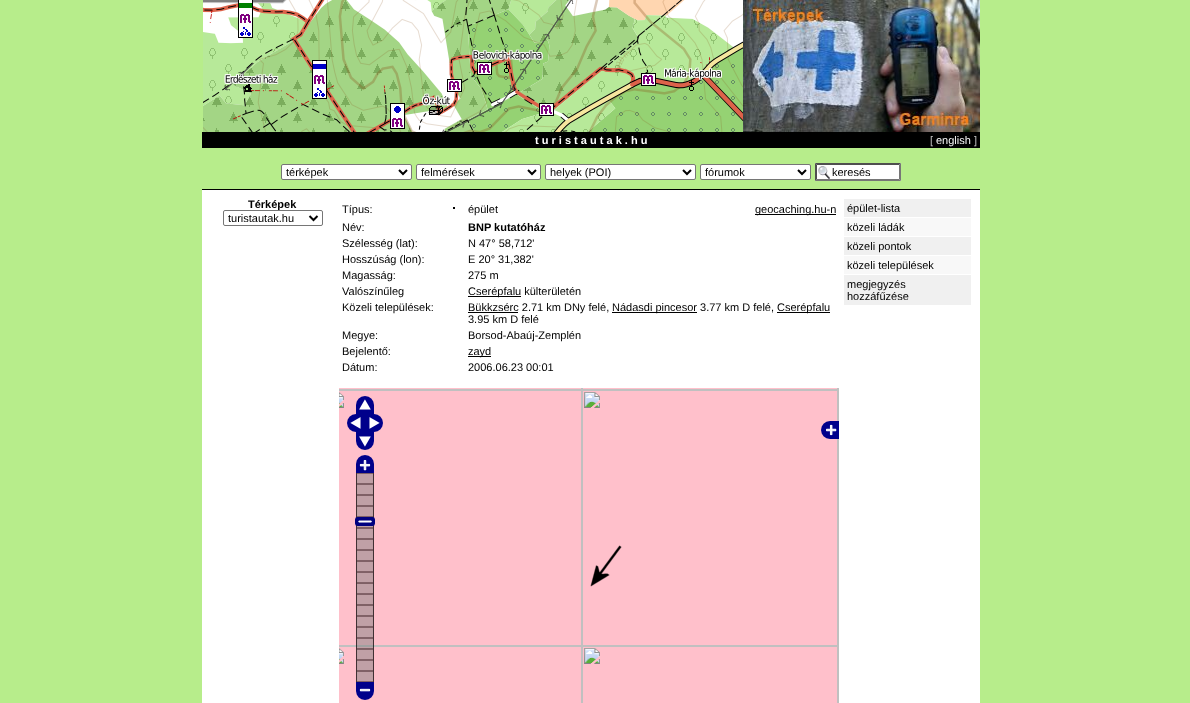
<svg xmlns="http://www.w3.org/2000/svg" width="1190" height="703">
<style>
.a{font:bold 11px Liberation Sans;fill:#fff}
.b{font:11px Liberation Sans;fill:#c0c0c0}
.c{font:11px Liberation Sans;fill:#f8f8f8}
.d{font:11px Liberation Sans;fill:#000}
.e{font:bold 11px Liberation Sans;fill:#000}
</style>
<rect width="100%" height="100%" fill="#b7ed8b"/>
<image href="1.png" x="203" y="0" width="540" height="132"/>
<image href="2.png" x="743" y="0" width="237" height="132"/>
<path fill="#000" d="M202 132h778v16H202z"/>
<rect fill="#fff" stroke="#767676" x="281.5" y="164.5" width="130" height="15" rx="1.5"/>
<path fill="none" stroke="#000" stroke-width="2" d="M399 170l4 4l4-4"/>
<rect fill="#fff" stroke="#767676" x="416.5" y="164.5" width="124" height="15" rx="1.5"/>
<path fill="none" stroke="#000" stroke-width="2" d="M528 170l4 4l4-4"/>
<rect fill="#fff" stroke="#767676" x="545.5" y="164.5" width="150" height="15" rx="1.5"/>
<path fill="none" stroke="#000" stroke-width="2" d="M683 170l4 4l4-4"/>
<rect fill="#fff" stroke="#767676" x="700.5" y="164.5" width="110" height="15" rx="1.5"/>
<path fill="none" stroke="#000" stroke-width="2" d="M798 170l4 4l4-4"/>
<path fill="#fff" d="M815 163h86v18H815z"/>
<image href="3.png" x="818" y="166" width="12" height="13"/>
<path fill="#4f4f4f" d="M815 163h86l-2 2h-82z"/>
<path fill="#767676" d="M901 163v18l-2-2v-14z"/>
<path fill="#767676" d="M901 181h-86l2-2h82z"/>
<path fill="#4f4f4f" d="M815 181v-18l2 2v14z"/>
<path fill="#000" d="M202 189h778v1H202z"/>
<path fill="#fff" d="M202 190h778v513H202z"/>
<path fill="#000" d="M453 207h2v2H453z"/>
<path fill="#000" d="M755 214h81v1H755z"/>
<path fill="#000" d="M468 296h53v1H468z"/>
<path fill="#000" d="M468 312h50v1H468z"/>
<path fill="#000" d="M612 312h85v1H612z"/>
<path fill="#000" d="M777 312h53v1H777z"/>
<path fill="#000" d="M468 356h23v1H468z"/>
<image href="4.png" x="339" y="388" width="500" height="315"/>
<path fill="#f0f0f0" d="M844 199h127v18H844z"/>
<path fill="#f8f8f8" d="M844 218h127v18H844z"/>
<path fill="#f0f0f0" d="M844 237h127v18H844z"/>
<path fill="#f8f8f8" d="M844 256h127v18H844z"/>
<path fill="#f0f0f0" d="M844 275h127v30H844z"/>
<text class="a" x="535" y="144">t u r i s t a u t a k . h u</text>
<text class="b" x="930" y="144">[</text>
<text class="c" x="936" y="144">english</text>
<text class="b" x="974" y="144">]</text>
<text class="d" x="286" y="176">térképek</text>
<text class="d" x="421" y="176">felmérések</text>
<text class="d" x="550" y="176">helyek (POI)</text>
<text class="d" x="705" y="176">fórumok</text>
<text class="d" x="832" y="176">keresés</text>
<text class="e" x="248" y="208">Térképek</text>
<rect fill="#fff" stroke="#767676" x="223.5" y="210.5" width="99" height="15" rx="1.5"/>
<path fill="none" stroke="#000" stroke-width="2" d="M309.5 216l4 4l4-4"/>
<text class="d" x="228" y="222">turistautak.hu</text>
<text class="d" x="342" y="213">Típus:</text>
<text class="d" x="468" y="213">épület</text>
<text class="d" x="755" y="213">geocaching.hu-n</text>
<text class="d" x="342" y="231">Név:</text>
<text class="e" x="468" y="231">BNP kutatóház</text>
<text class="d" x="342" y="247">Szélesség (lat):</text>
<text class="d" x="468" y="247">N 47° 58,712'</text>
<text class="d" x="342" y="263">Hosszúság (lon):</text>
<text class="d" x="468" y="263">E 20° 31,382'</text>
<text class="d" x="342" y="279">Magasság:</text>
<text class="d" x="468" y="279">275 m</text>
<text class="d" x="342" y="295">Valószínűleg</text>
<text class="d" x="468" y="295">Cserépfalu külterületén</text>
<text class="d" x="342" y="311">Közeli települések:</text>
<text class="d" x="468" y="311">Bükkzsérc 2.71 km DNy felé,</text>
<text class="d" x="612" y="311">Nádasdi pincesor 3.77 km D felé,</text>
<text class="d" x="777" y="311">Cserépfalu</text>
<text class="d" x="468" y="323">3.95 km D felé</text>
<text class="d" x="342" y="339">Megye:</text>
<text class="d" x="468" y="339">Borsod-Abaúj-Zemplén</text>
<text class="d" x="342" y="355">Bejelentő:</text>
<text class="d" x="468" y="355">zayd</text>
<text class="d" x="342" y="371">Dátum:</text>
<text class="d" x="468" y="371">2006.06.23 00:01</text>
<text class="d" x="847" y="212">épület-lista</text>
<text class="d" x="847" y="231">közeli ládák</text>
<text class="d" x="847" y="250">közeli pontok</text>
<text class="d" x="847" y="269">közeli települések</text>
<text class="d" x="847" y="288">megjegyzés</text>
<text class="d" x="847" y="300">hozzáfűzése</text>
</svg>
